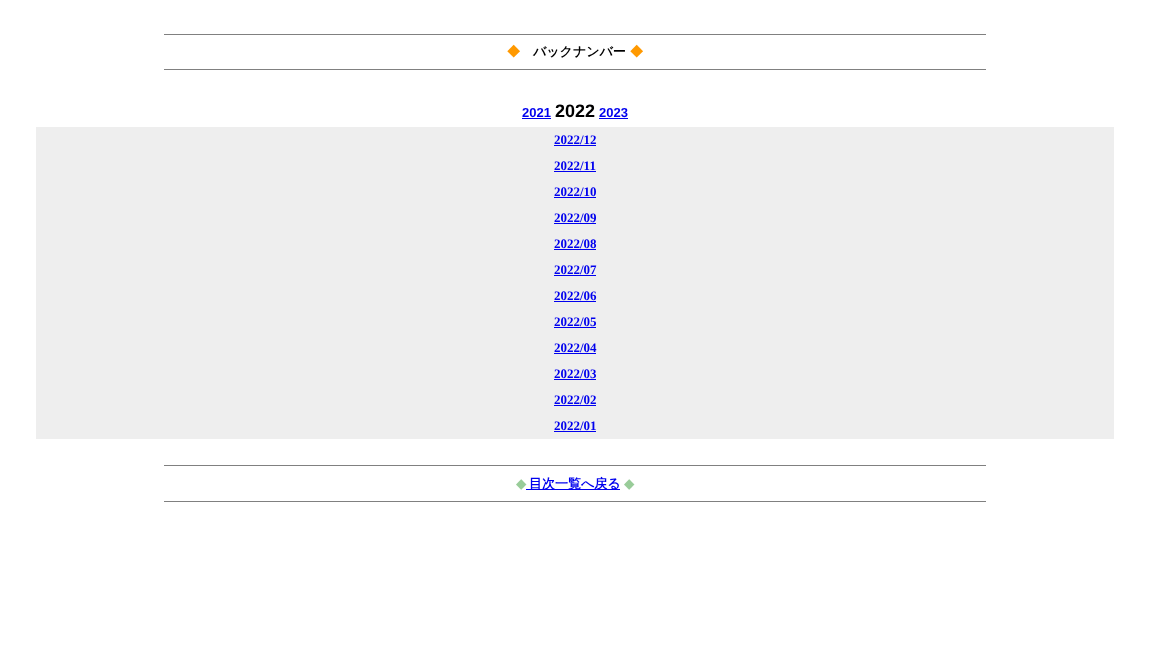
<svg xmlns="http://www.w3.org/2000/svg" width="1150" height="653">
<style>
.a{font:bold 13px WenQuanYi Zen Hei;fill:#f90}
.b{font:bold 13px WenQuanYi Zen Hei;fill:#000}
.c{font:bold 13px Liberation Sans;fill:#00e}
.d{font:bold 18px Liberation Sans;fill:#000}
.e{font:bold 13px Liberation Serif;fill:#00e}
.f{font:bold 13px DejaVu Sans;fill:#9c9}
.g{font:bold 13px WenQuanYi Zen Hei;fill:#00e}
</style>
<rect width="100%" height="100%" fill="#fff"/>
<path fill="#808080" d="M164 34h822v1H164z"/>
<path fill="#808080" d="M164 69h822v1H164z"/>
<path fill="#00e" d="M522 118h29v1H522z"/>
<path fill="#00e" d="M599 118h29v1H599z"/>
<path fill="#eee" d="M36 127h1078v312H36z"/>
<path fill="#00e" d="M554 145h42v1H554z"/>
<path fill="#00e" d="M554 171h42v1H554z"/>
<path fill="#00e" d="M554 197h42v1H554z"/>
<path fill="#00e" d="M554 223h42v1H554z"/>
<path fill="#00e" d="M554 249h42v1H554z"/>
<path fill="#00e" d="M554 275h42v1H554z"/>
<path fill="#00e" d="M554 301h42v1H554z"/>
<path fill="#00e" d="M554 327h42v1H554z"/>
<path fill="#00e" d="M554 353h42v1H554z"/>
<path fill="#00e" d="M554 379h42v1H554z"/>
<path fill="#00e" d="M554 405h42v1H554z"/>
<path fill="#00e" d="M554 431h42v1H554z"/>
<path fill="#808080" d="M164 465h822v1H164z"/>
<path fill="#00e" d="M526 489h94v1H526z"/>
<path fill="#808080" d="M164 501h822v1H164z"/>
<text class="a" x="507" y="56">◆</text>
<text class="b" x="533" y="56">バックナンバー</text>
<text class="a" x="630" y="56">◆</text>
<text class="c" x="522" y="117">2021</text>
<text class="d" x="555" y="117">2022</text>
<text class="c" x="599" y="117">2023</text>
<text class="e" x="554" y="144">2022/12</text>
<text class="e" x="554" y="170">2022/11</text>
<text class="e" x="554" y="196">2022/10</text>
<text class="e" x="554" y="222">2022/09</text>
<text class="e" x="554" y="248">2022/08</text>
<text class="e" x="554" y="274">2022/07</text>
<text class="e" x="554" y="300">2022/06</text>
<text class="e" x="554" y="326">2022/05</text>
<text class="e" x="554" y="352">2022/04</text>
<text class="e" x="554" y="378">2022/03</text>
<text class="e" x="554" y="404">2022/02</text>
<text class="e" x="554" y="430">2022/01</text>
<text class="f" x="516" y="488">◆</text>
<text class="g" x="529" y="488">目次一覧へ戻る</text>
<text class="f" x="624" y="488">◆</text>
</svg>
